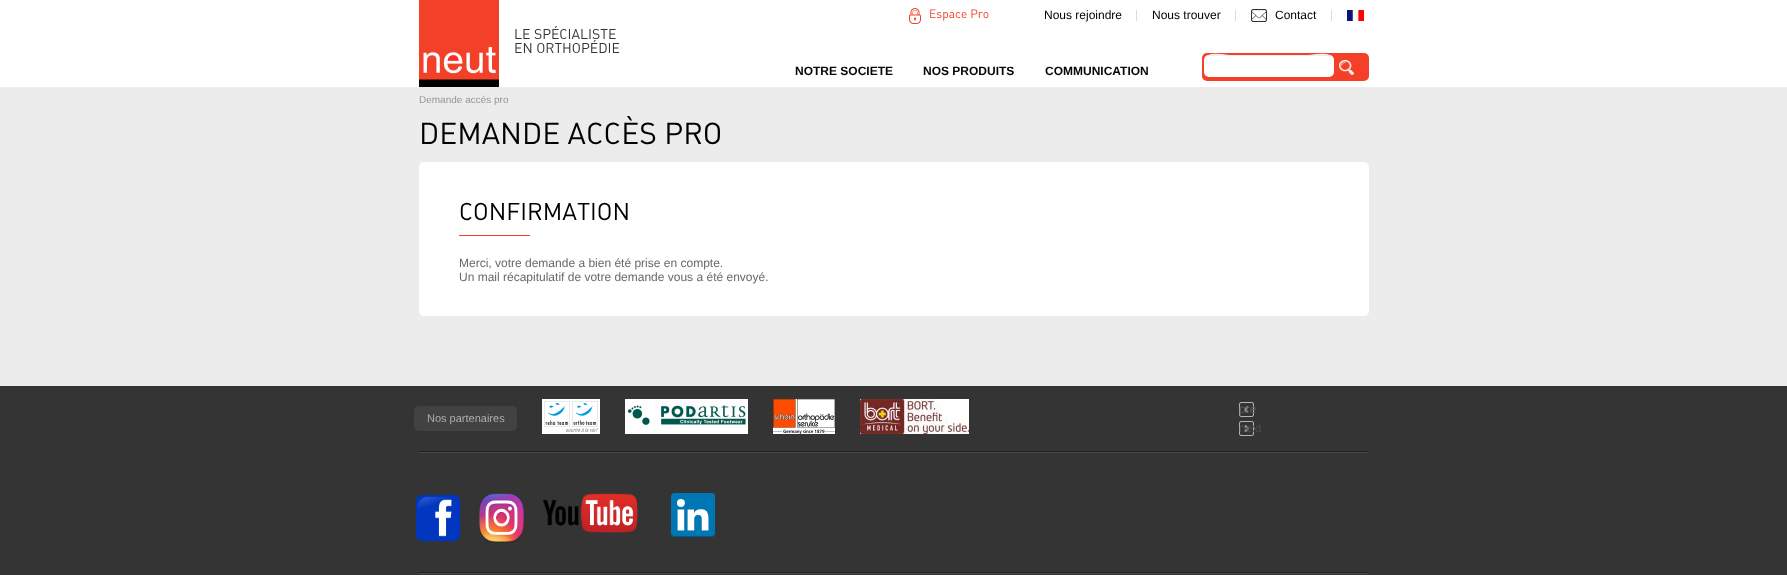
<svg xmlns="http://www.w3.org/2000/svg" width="1787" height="575">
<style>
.a{font:12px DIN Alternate;fill:#f44029}
.b{font:12px Liberation Sans;fill:#000}
.c{font:14px DIN Alternate;fill:#343434}
.d{font:bold 12px Liberation Sans;fill:#070705}
.e{font:10px Liberation Sans;fill:#949494}
.f{font:30px DIN Alternate;fill:#000}
.g{font:24px DIN Alternate;fill:#000}
.h{font:12px Liberation Sans;fill:#686868}
.i{font:11px Liberation Sans;fill:#aeaeae}
.j{font:12px Liberation Sans;fill:#5a5a5a}
.k{font:12px Liberation Sans;fill:#4f4f4f}
</style>
<rect width="100%" height="100%" fill="#ececec"/>
<path fill="#fff" d="M0 0h1787v87H0z"/>
<image href="1.png" x="419" y="0" width="80" height="87"/>
<image href="2.png" x="909" y="8" width="12" height="16"/>
<path fill="#dcdcdc" d="M1136 10h1v11H1136z"/>
<path fill="#dcdcdc" d="M1235 10h1v11H1235z"/>
<image href="3.png" x="1251" y="9" width="16" height="13"/>
<path fill="#dcdcdc" d="M1331 10h1v11H1331z"/>
<image href="4.png" x="1347" y="10" width="17" height="11"/>
<rect fill="#f44029" x="1202" y="53" width="167" height="28" rx="5"/>
<rect fill="#fff" x="1204" y="55" width="130" height="22" rx="5"/>
<path fill="#eee" d="M1209 56h120c3 0 5 2 5 5c0-11-21-6-25-6h-80c-4 0-25-5-25 6c0-3 2-5 5-5z"/>
<image href="5.png" x="1339" y="60" width="15" height="15"/>
<rect fill="#fff" x="419" y="162" width="950" height="154" rx="5"/>
<path fill="#f44029" d="M459 235h71v1H459z"/>
<path fill="#343434" d="M0 386h1787v189H0z"/>
<rect fill="#424242" x="414" y="406" width="103" height="25" rx="5"/>
<image href="6.png" x="542" y="399" width="58" height="35"/>
<image href="7.png" x="625" y="399" width="123" height="35"/>
<image href="8.png" x="773" y="399" width="62" height="35"/>
<image href="9.png" x="860" y="399" width="109" height="35"/>
<image href="10.png" x="1239" y="402" width="15" height="15"/>
<image href="11.png" x="1239" y="421" width="15" height="15"/>
<image href="12.png" x="419" y="451" width="950" height="2"/>
<image href="13.png" x="415" y="494" width="46" height="48"/>
<image href="14.png" x="479" y="493" width="45" height="50"/>
<image href="15.png" x="543" y="493" width="95" height="40"/>
<image href="16.png" x="671" y="493" width="44" height="44"/>
<image href="12.png" x="419" y="572" width="950" height="2"/>
<text class="a" x="929" y="18">Espace Pro</text>
<text class="b" x="1044" y="19">Nous rejoindre</text>
<text class="b" x="1152" y="19">Nous trouver</text>
<text class="b" x="1275" y="19">Contact</text>
<text class="c" x="514" y="39">LE SPÉCIALISTE</text>
<text class="c" x="514" y="53">EN ORTHOPÉDIE</text>
<text class="d" x="795" y="75">NOTRE SOCIETE</text>
<text class="d" x="923" y="75">NOS PRODUITS</text>
<text class="d" x="1045" y="75">COMMUNICATION</text>
<text class="e" x="419" y="103">Demande accès pro</text>
<text class="f" x="419" y="144">DEMANDE ACCÈS PRO</text>
<text class="g" x="459" y="220">CONFIRMATION</text>
<text class="h" x="459" y="267">Merci, votre demande a bien été prise en compte.</text>
<text class="h" x="459" y="281">Un mail récapitulatif de votre demande vous a été envoyé.</text>
<text class="i" x="427" y="422">Nos partenaires</text>
<text class="j" x="1239" y="413">pre</text>
<text class="k" x="1239" y="432">next</text>
</svg>
